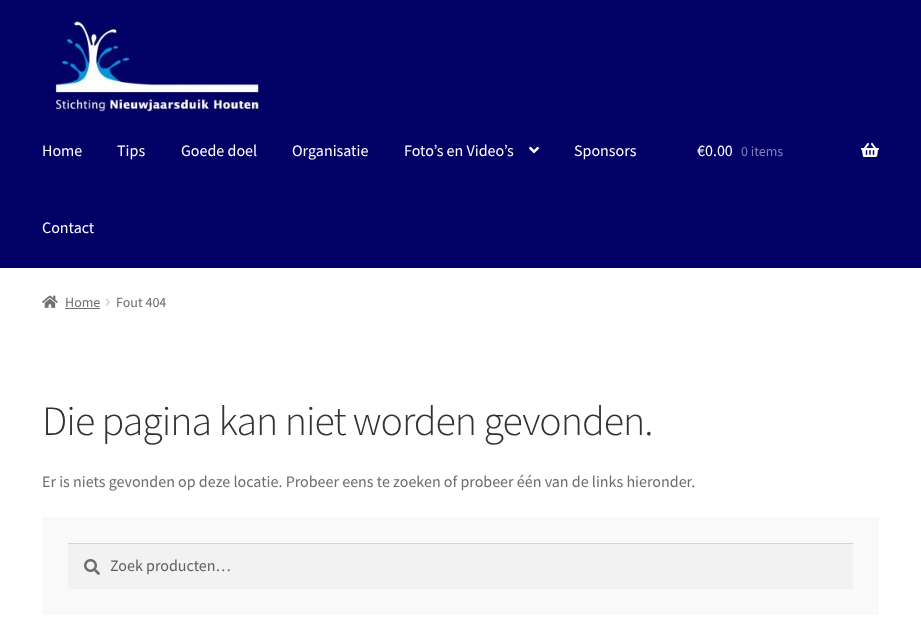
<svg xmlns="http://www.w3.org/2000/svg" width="921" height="626">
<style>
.a{font:16px Source Sans Pro;fill:#fff}
.b{font:14px Source Sans Pro;fill:#8080b3}
.c{font:14px Source Sans Pro;fill:#6d6d6d}
.d{font:300 41.9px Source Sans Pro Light;letter-spacing:-1px;fill:#333}
.e{font:16px Source Sans Pro;fill:#6d6d6d}
.f{font:16px Source Sans Pro;fill:#616161}
</style>
<rect width="100%" height="100%" fill="#fff"/>
<path fill="#010066" d="M0 0h921v267H0z"/>
<path fill="#000057" d="M0 267h921v1H0z"/>
<image href="1.png" x="54" y="20" width="215" height="92"/>
<image href="2.png" x="529" y="146" width="10" height="8"/>
<image href="3.png" x="861" y="143" width="18" height="14"/>
<image href="4.png" x="42" y="295" width="16" height="13"/>
<path fill="#727272" d="M65 308h35v1H65z"/>
<image href="5.png" x="105" y="298" width="6" height="8"/>
<path fill="#f9f9f9" d="M42 517h837v98H42z"/>
<path fill="#f2f2f2" d="M68 544h785v45H68z"/>
<image href="6.png" x="84" y="559" width="16" height="16"/>
<path fill="#d4d4d4" d="M68 543h785v1H68z"/>
<text class="a" x="42" y="156">Home</text>
<text class="a" x="117" y="156">Tips</text>
<text class="a" x="181" y="156">Goede doel</text>
<text class="a" x="292" y="156">Organisatie</text>
<text class="a" x="404" y="156">Foto’s en Video’s</text>
<text class="a" x="574" y="156">Sponsors</text>
<text class="a" x="42" y="233">Contact</text>
<text class="a" x="697" y="156">€0.00</text>
<text class="b" x="741" y="156">0 items</text>
<text class="c" x="65" y="307">Home</text>
<text class="c" x="116" y="307">Fout 404</text>
<text class="d" x="42" y="435">Die pagina kan niet worden gevonden.</text>
<text class="e" x="42" y="487">Er is niets gevonden op deze locatie. Probeer eens te zoeken of probeer één van de links hieronder.</text>
<text class="f" x="110" y="571">Zoek producten…</text>
</svg>
